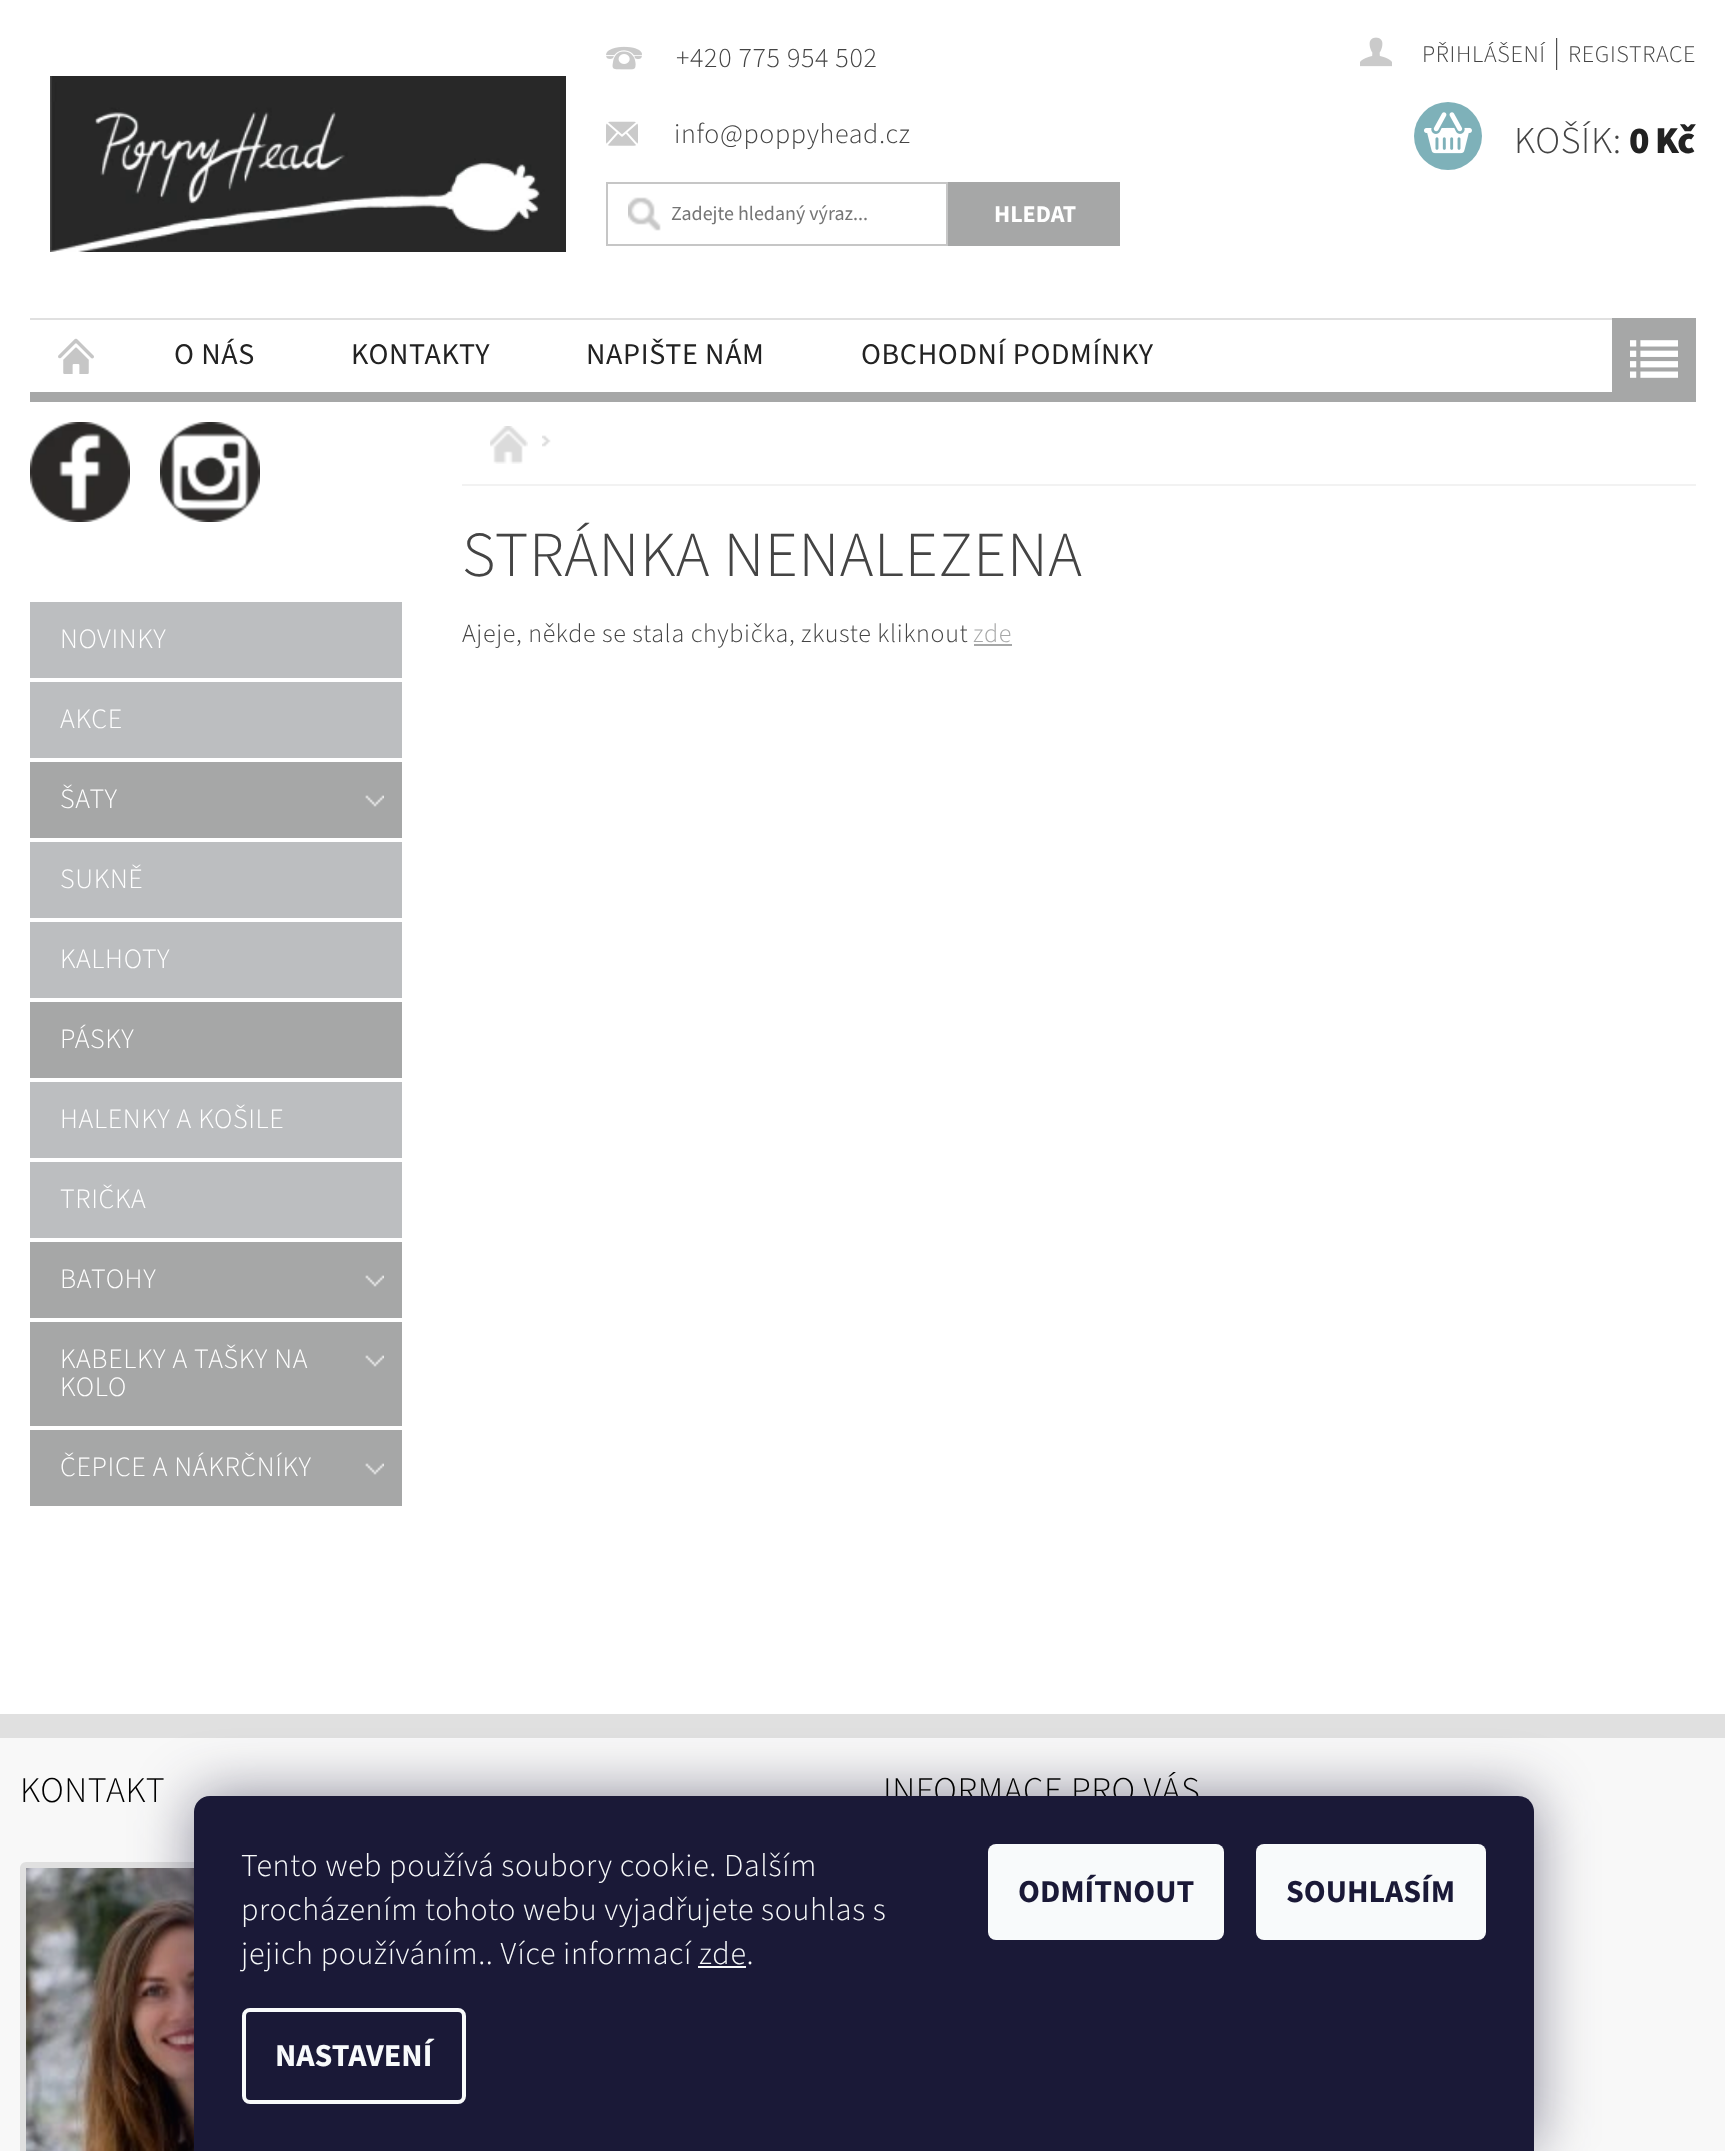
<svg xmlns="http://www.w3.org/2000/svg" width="1725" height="2151">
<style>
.a{font:300 28px 'Source Sans 3';letter-spacing:0.65px;fill:#444}
.b{font:20px 'Source Sans 3';fill:#757575}
.c{font:bold 24px 'Source Sans 3';fill:#fff}
.d{font:300 24px 'Source Sans 3';letter-spacing:0.65px;fill:#444}
.e{font:300 32px 'Source Sans 3';letter-spacing:0.65px;fill:#444}
.f{font:300 38px 'Source Sans 3';letter-spacing:0.65px;fill:#444}
.g{font:900 38px 'Source Sans 3';letter-spacing:-1px;fill:#222}
.h{font:30px 'Source Sans 3';letter-spacing:0.65px;fill:#222}
.i{font:300 64px 'Source Sans 3';letter-spacing:0.65px;fill:#444}
.j{font:300 26px 'Source Sans 3';letter-spacing:0.65px;fill:#444}
.k{font:300 26px 'Source Sans 3';letter-spacing:0.65px;fill:#a6a7a7}
.l{font:300 28px 'Source Sans 3';letter-spacing:0.65px;fill:#fff}
.m{font:300 36px 'Source Sans 3';letter-spacing:0.65px;fill:#000}
.n{font:300 32px 'Source Sans 3';letter-spacing:0.65px;fill:#f8fafb}
.o{font:bold 32px 'Source Sans 3';fill:#f8fafb}
.p{font:bold 32px 'Source Sans 3';fill:#1a1937}
</style>
<rect width="100%" height="100%" fill="#fff"/>
<path fill="#a6a7a7" d="M30 392h1582v10H30z"/>
<image href="1.png" x="50" y="76" width="516" height="176"/>
<image href="2.png" x="606" y="46" width="36" height="24"/>
<image href="3.png" x="606" y="121" width="32" height="25"/>
<image href="4.png" x="628" y="197" width="33" height="34"/>
<path fill="none" stroke="#c6c6c6" stroke-width="2" d="M607 183h340v62H607z"/>
<path fill="#a6a7a7" d="M948 182h172v64H948z"/>
<image href="5.png" x="1360" y="37" width="32" height="30"/>
<circle fill="#7eb1b9" cx="1448" cy="136" r="34"/>
<image href="6.png" x="1424" y="112" width="48" height="42"/>
<path fill="#e0e0e0" d="M30 318h1582v2H30z"/>
<image href="7.png" x="58" y="338" width="36" height="36"/>
<path fill="#a6a7a7" d="M1612 318h84v84H1612z"/>
<image href="8.png" x="1630" y="340" width="48" height="38"/>
<path fill="#f2f2f2" d="M462 484h1234v2H462z"/>
<image href="9.png" x="490" y="426" width="38" height="38"/>
<image href="10.png" x="542" y="435" width="9" height="12"/>
<path fill="#a6a7a7" d="M974 644h38v2H974z"/>
<image href="11.png" x="30" y="422" width="100" height="100"/>
<image href="12.png" x="160" y="422" width="100" height="100"/>
<path fill="#bcbec0" d="M30 602h372v76H30z"/>
<path fill="#bcbec0" d="M30 682h372v76H30z"/>
<path fill="#a6a7a7" d="M30 762h372v76H30z"/>
<image href="13.png" x="365" y="795" width="19" height="12"/>
<path fill="#bcbec0" d="M30 842h372v76H30z"/>
<path fill="#bcbec0" d="M30 922h372v76H30z"/>
<path fill="#a6a7a7" d="M30 1002h372v76H30z"/>
<path fill="#bcbec0" d="M30 1082h372v76H30z"/>
<path fill="#bcbec0" d="M30 1162h372v76H30z"/>
<path fill="#a6a7a7" d="M30 1242h372v76H30z"/>
<image href="13.png" x="365" y="1275" width="19" height="12"/>
<path fill="#a6a7a7" d="M30 1322h372v104H30z"/>
<image href="13.png" x="365" y="1355" width="19" height="12"/>
<path fill="#a6a7a7" d="M30 1430h372v76H30z"/>
<image href="13.png" x="365" y="1463" width="19" height="12"/>
<path fill="#f8f8f8" d="M0 1738h1725v413H0z"/>
<path fill="#e0e0e0" d="M0 1714h1725v24H0z"/>
<rect fill="none" stroke="#e0e0e0" stroke-width="6" x="23" y="1865" width="306" height="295" rx="3"/>
<image href="14.png" x="26" y="1868" width="168" height="283"/>
<rect fill="#1b193980" filter="blur(30px)" x="194" y="1796" width="1340" height="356" rx="16"/>
<text class="a" x="676" y="67">+420 775 954 502</text>
<text class="a" x="674" y="143">info@poppyhead.cz</text>
<text class="b" x="671" y="220">Zadejte hledaný výraz...</text>
<text class="c" x="994" y="222">HLEDAT</text>
<text class="d" x="1422" y="62">PŘIHLÁŠENÍ</text>
<text class="e" x="1553" y="62">|</text>
<text class="d" x="1568" y="62">REGISTRACE</text>
<text class="f" x="1514" y="153">KOŠÍK:</text>
<text class="g" x="1629" y="153">0 Kč</text>
<text class="h" x="174" y="364">O NÁS</text>
<text class="h" x="351" y="364">KONTAKTY</text>
<text class="h" x="586" y="364">NAPIŠTE NÁM</text>
<text class="h" x="861" y="364">OBCHODNÍ PODMÍNKY</text>
<text class="i" x="462" y="576">STRÁNKA NENALEZENA</text>
<text class="j" x="462" y="642">Ajeje, někde se stala chybička, zkuste kliknout</text>
<text class="k" x="973" y="642">zde</text>
<text class="l" x="60" y="648">NOVINKY</text>
<text class="l" x="60" y="728">AKCE</text>
<text class="l" x="60" y="808">ŠATY</text>
<text class="l" x="60" y="888">SUKNĚ</text>
<text class="l" x="60" y="968">KALHOTY</text>
<text class="l" x="60" y="1048">PÁSKY</text>
<text class="l" x="60" y="1128">HALENKY A KOŠILE</text>
<text class="l" x="60" y="1208">TRIČKA</text>
<text class="l" x="60" y="1288">BATOHY</text>
<text class="l" x="60" y="1368">KABELKY A TAŠKY NA</text>
<text class="l" x="60" y="1396">KOLO</text>
<text class="l" x="60" y="1476">ČEPICE A NÁKRČNÍKY</text>
<text class="m" x="20" y="1802">KONTAKT</text>
<text class="m" x="883" y="1802">INFORMACE PRO VÁS</text>
<path fill="#1a1937" d="M210 1796h1308c9 0 16 7 16 16v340h-1340v-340c0-9 7-16 16-16z"/>
<text class="n" x="241" y="1876">Tento web používá soubory cookie. Dalším</text>
<text class="n" x="241" y="1920">procházením tohoto webu vyjadřujete souhlas s</text>
<text class="n" x="241" y="1964">jejich používáním.. Více informací zde.</text>
<path fill="#f8fafb" d="M698 1966h48v2H698z"/>
<rect fill="none" stroke="#f8fafb" stroke-width="4" x="244" y="2010" width="220" height="92" rx="6"/>
<text class="o" x="275" y="2066">NASTAVENÍ</text>
<rect fill="#f8fafb" x="988" y="1844" width="236" height="96" rx="8"/>
<text class="p" x="1018" y="1902">ODMÍTNOUT</text>
<rect fill="#f8fafb" x="1256" y="1844" width="230" height="96" rx="8"/>
<text class="p" x="1286" y="1902">SOUHLASÍM</text>
</svg>
